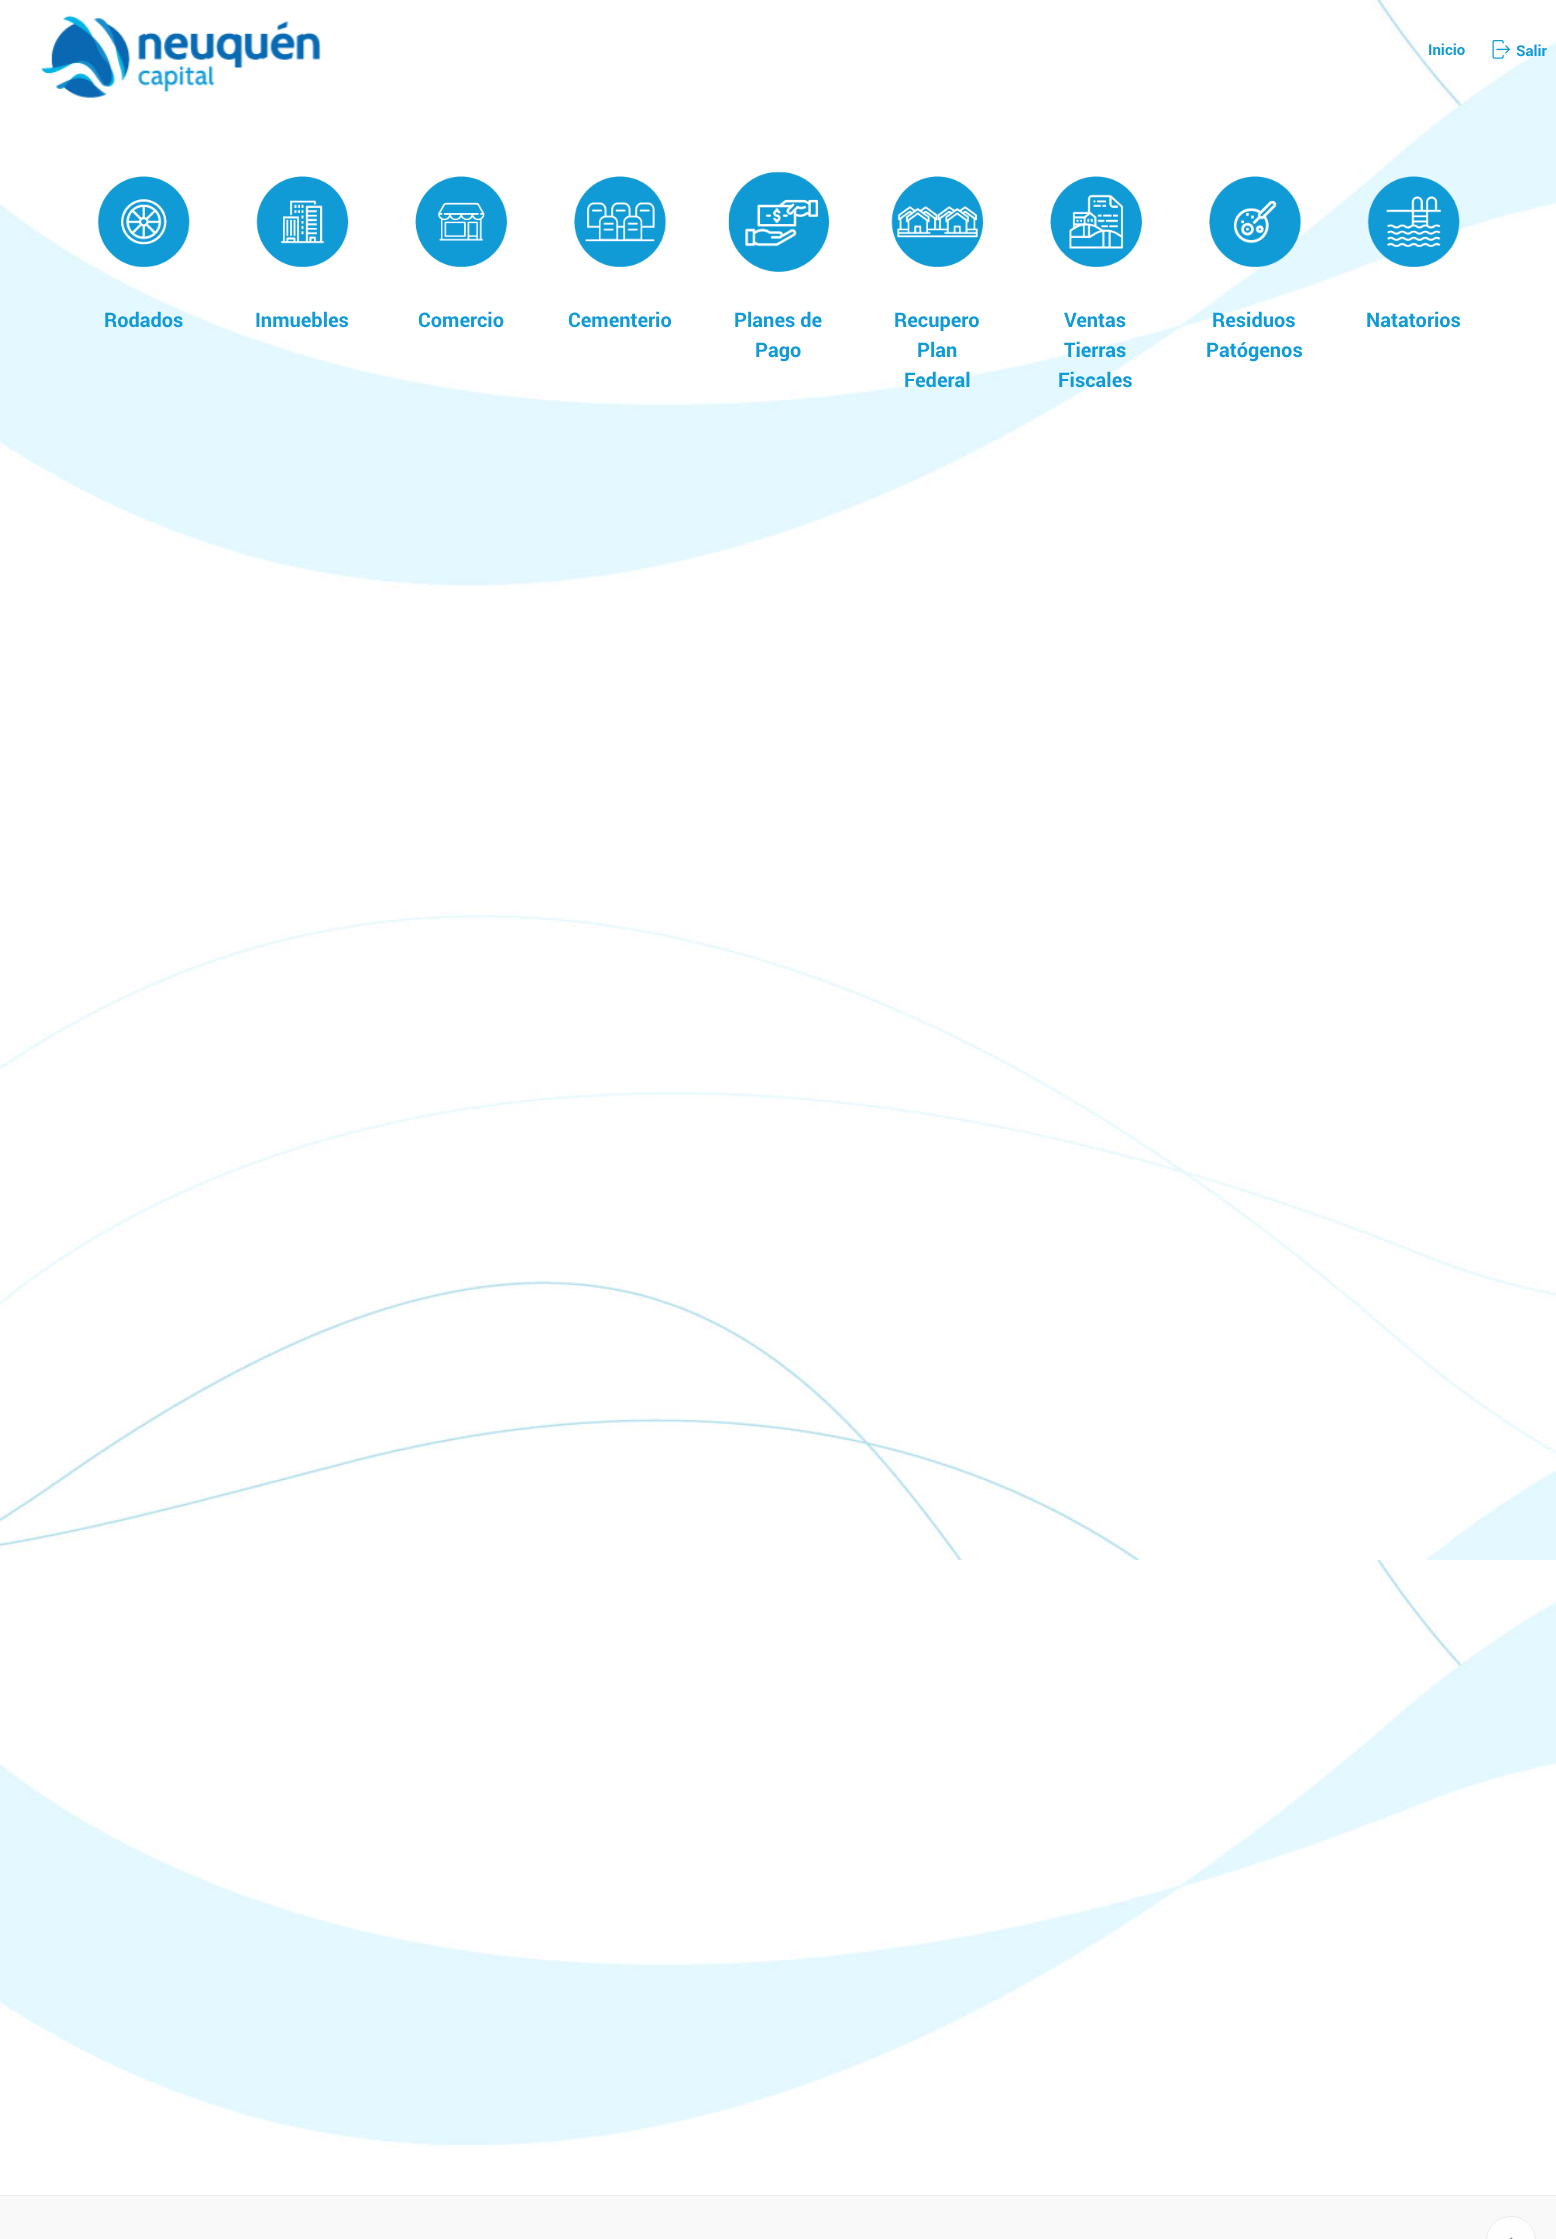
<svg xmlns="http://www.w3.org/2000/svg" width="1556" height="2239">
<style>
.a{font:bold 15px Roboto;fill:#109ad6}
.b{font:bold 20px Roboto;fill:#109ad6}
</style>
<rect width="100%" height="100%" fill="#fff"/>
<image href="1.png" x="0" y="0" width="1556" height="2148"/>
<image href="2.png" x="959" y="0" width="506" height="103"/>
<image href="3.png" x="41" y="15" width="280" height="83"/>
<image href="4.png" x="1492" y="40" width="18" height="19"/>
<image href="5.png" x="97" y="176" width="93" height="91"/>
<image href="6.png" x="256" y="176" width="92" height="91"/>
<image href="7.png" x="415" y="176" width="92" height="91"/>
<image href="8.png" x="574" y="176" width="92" height="91"/>
<image href="9.png" x="728" y="171" width="101" height="101"/>
<image href="10.png" x="891" y="176" width="92" height="91"/>
<image href="11.png" x="1050" y="176" width="92" height="91"/>
<image href="12.png" x="1209" y="176" width="92" height="91"/>
<image href="13.png" x="1367" y="176" width="93" height="91"/>
<path fill="#f9f9f9" d="M0 2196h1556v43H0z"/>
<path fill="#ededed" d="M0 2195h1556v1H0z"/>
<rect fill="#fefefe" x="1486" y="2216" width="50" height="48" rx="25"/>
<rect fill="none" stroke="#3e3e3e1a" x="1486.5" y="2216.5" width="49" height="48" rx="24.5"/>
<image href="14.png" x="1509" y="2237" width="4" height="2"/>
<text class="a" x="1428" y="55">Inicio</text>
<text class="a" x="1516" y="56">Salir</text>
<text class="b" x="104" y="327">Rodados</text>
<text class="b" x="255" y="327">Inmuebles</text>
<text class="b" x="418" y="327">Comercio</text>
<text class="b" x="568" y="327">Cementerio</text>
<text class="b" x="734" y="327">Planes de</text>
<text class="b" x="755" y="357">Pago</text>
<text class="b" x="894" y="327">Recupero</text>
<text class="b" x="917" y="357">Plan</text>
<text class="b" x="904" y="387">Federal</text>
<text class="b" x="1064" y="327">Ventas</text>
<text class="b" x="1064" y="357">Tierras</text>
<text class="b" x="1058" y="387">Fiscales</text>
<text class="b" x="1212" y="327">Residuos</text>
<text class="b" x="1206" y="357">Patógenos</text>
<text class="b" x="1366" y="327">Natatorios</text>
</svg>
